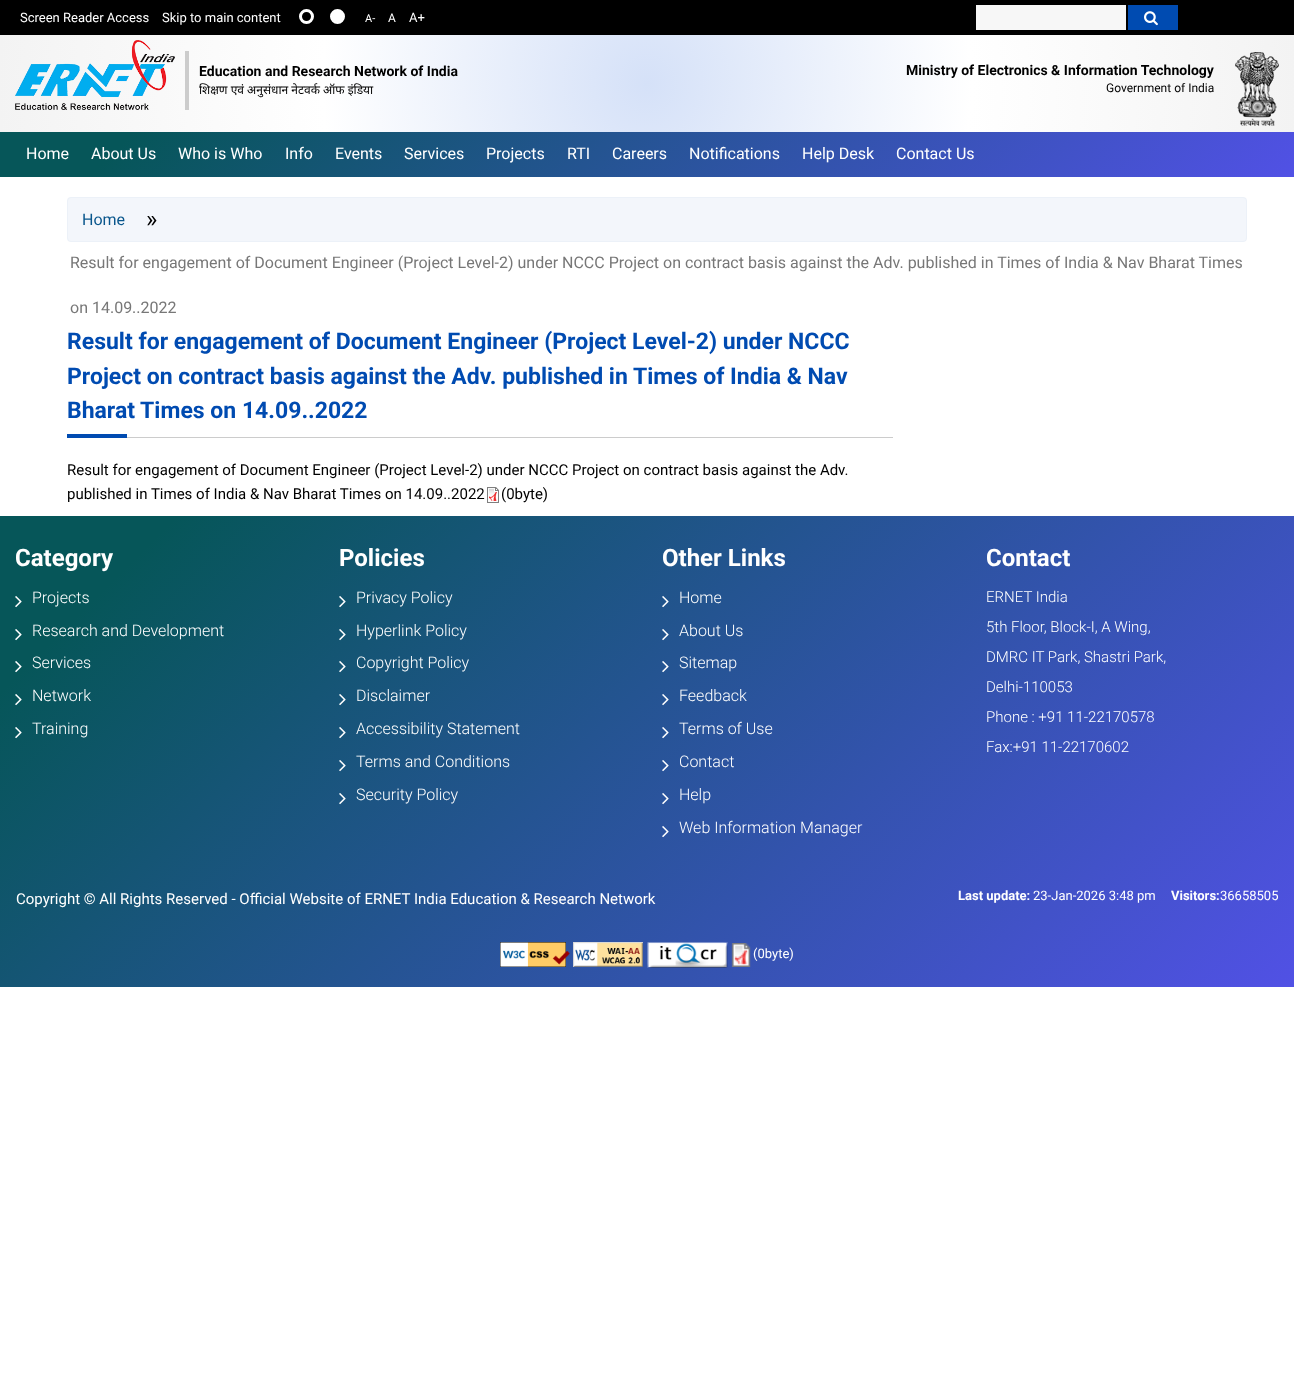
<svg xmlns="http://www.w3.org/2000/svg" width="1294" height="1373">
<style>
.a{font:13px Roboto;fill:#fff}
.b{font:11px Roboto;fill:#fff}
.c{font:12px Roboto;fill:#fff}
.d{font:bold 14px Roboto;fill:#000}
.e{font:12px Noto Sans;fill:#000}
.f{font:12px Roboto;fill:#000}
.g{font:16px Roboto;fill:#fff}
.h{font:16px Roboto;fill:#09568c}
.i{font:24px Roboto;fill:#000}
.j{font:16px Roboto;fill:#777}
.k{font:bold 23px Roboto;fill:#004bb1}
.l{font:15px Roboto;fill:#000}
.m{font:bold 24px Roboto;fill:#fff}
.n{font:300 16px Roboto;fill:#fff}
.o{font:300 15px Roboto;fill:#fff}
.p{font:15px Roboto;fill:#fff}
.q{font:bold 13px Roboto;fill:#fff}
</style>
<defs>
<radialGradient id="g1" gradientUnits="userSpaceOnUse" cx="647" cy="84" r="649"><stop offset="0" stop-color="#d5e1f8"/><stop offset="0.5" stop-color="#fff"/><stop offset="1" stop-color="#f3f3f3"/></radialGradient>
<linearGradient id="g2" gradientUnits="userSpaceOnUse" x1="312" y1="-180" x2="982" y2="489"><stop offset="0.1" stop-color="#065659"/><stop offset="1" stop-color="#5151e5"/></linearGradient>
<linearGradient id="g3" gradientUnits="userSpaceOnUse" x1="206" y1="310" x2="1088" y2="1193"><stop offset="0.1" stop-color="#065659"/><stop offset="1" stop-color="#5151e5"/></linearGradient>
</defs>
<rect width="100%" height="100%" fill="#fff"/>
<path fill="#000" d="M0 0h1294v35H0z"/>
<circle fill="none" stroke="#fff" stroke-width="3" cx="306.5" cy="16.5" r="6"/>
<circle fill="#fff" stroke="#fff" stroke-width="3" cx="337.5" cy="16.5" r="6"/>
<path fill="#f7f7f7" d="M976 5h150v25H976z"/>
<path fill="#004bb1" d="M1128 5h50v25H1128z"/>
<image href="1.png" x="1144" y="11" width="14" height="15"/>
<path fill="url(#g1)" d="M0 35h1294v97H0z"/>
<image href="2.png" x="15" y="40" width="160" height="70"/>
<path fill="#ccc" d="M185 51h4v59H185z"/>
<image href="3.png" x="1235" y="52" width="44" height="74"/>
<path fill="url(#g2)" d="M0 132h1294v45H0z"/>
<rect fill="#f3f6fb" x="67" y="197" width="1180" height="45" rx="4"/>
<rect fill="none" stroke="#e4ebf573" x="67.5" y="197.5" width="1179" height="44" rx="3.5"/>
<path fill="#ccc" d="M127 437h766v1H127z"/>
<path fill="#004bb1" d="M67 434h60v4H67z"/>
<image href="4.png" x="487" y="487" width="12" height="16"/>
<path fill="url(#g3)" d="M0 516h1294v471H0z"/>
<image href="5.png" x="15" y="596" width="7" height="12"/>
<image href="5.png" x="15" y="629" width="7" height="12"/>
<image href="5.png" x="15" y="661" width="7" height="12"/>
<image href="6.png" x="15" y="694" width="7" height="12"/>
<image href="7.png" x="15" y="727" width="7" height="12"/>
<image href="8.png" x="339" y="596" width="7" height="12"/>
<image href="9.png" x="339" y="629" width="7" height="12"/>
<image href="10.png" x="339" y="661" width="7" height="12"/>
<image href="11.png" x="339" y="694" width="7" height="12"/>
<image href="12.png" x="339" y="727" width="7" height="12"/>
<image href="13.png" x="339" y="760" width="7" height="12"/>
<image href="14.png" x="339" y="793" width="7" height="12"/>
<image href="15.png" x="662" y="596" width="7" height="12"/>
<image href="16.png" x="662" y="629" width="7" height="12"/>
<image href="17.png" x="662" y="661" width="7" height="12"/>
<image href="18.png" x="662" y="694" width="7" height="12"/>
<image href="19.png" x="662" y="727" width="7" height="12"/>
<image href="20.png" x="662" y="760" width="7" height="12"/>
<image href="21.png" x="662" y="793" width="7" height="12"/>
<image href="22.png" x="662" y="826" width="7" height="12"/>
<image href="23.png" x="500" y="942" width="70" height="25"/>
<image href="24.png" x="573" y="942" width="70" height="25"/>
<image href="25.png" x="647" y="942" width="81" height="26"/>
<image href="26.png" x="731" y="943" width="20" height="24"/>
<text class="a" x="20" y="22">Screen Reader Access</text>
<text class="a" x="162" y="22">Skip to main content</text>
<text class="b" x="365" y="22">A-</text>
<text class="c" x="388" y="22">A</text>
<text class="a" x="409" y="22">A+</text>
<text class="d" x="199" y="76">Education and Research Network of India</text>
<text class="e" x="199" y="94">शिक्षण एवं अनुसंधान नेटवर्क ऑफ इंडिया</text>
<text class="d" x="906" y="75">Ministry of Electronics &amp; Information Technology</text>
<text class="f" x="1106" y="92">Government of India</text>
<text class="g" x="26" y="159">Home</text>
<text class="g" x="91" y="159">About Us</text>
<text class="g" x="178" y="159">Who is Who</text>
<text class="g" x="285" y="159">Info</text>
<text class="g" x="335" y="159">Events</text>
<text class="g" x="404" y="159">Services</text>
<text class="g" x="486" y="159">Projects</text>
<text class="g" x="567" y="159">RTI</text>
<text class="g" x="612" y="159">Careers</text>
<text class="g" x="689" y="159">Notifications</text>
<text class="g" x="802" y="159">Help Desk</text>
<text class="g" x="896" y="159">Contact Us</text>
<text class="h" x="82" y="225">Home</text>
<text class="i" x="146" y="227">»</text>
<text class="j" x="70" y="268">Result for engagement of Document Engineer (Project Level-2) under NCCC Project on contract basis against the Adv. published in Times of India &amp; Nav Bharat Times</text>
<text class="j" x="70" y="313">on 14.09..2022</text>
<text class="k" x="67" y="349">Result for engagement of Document Engineer (Project Level-2) under NCCC</text>
<text class="k" x="67" y="384">Project on contract basis against the Adv. published in Times of India &amp; Nav</text>
<text class="k" x="67" y="418">Bharat Times on 14.09..2022</text>
<text class="l" x="67" y="475">Result for engagement of Document Engineer (Project Level-2) under NCCC Project on contract basis against the Adv.</text>
<text class="l" x="67" y="499">published in Times of India &amp; Nav Bharat Times on 14.09..2022</text>
<text class="l" x="501" y="499">(0byte)</text>
<text class="m" x="15" y="566">Category</text>
<text class="n" x="32" y="603">Projects</text>
<text class="n" x="32" y="636">Research and Development</text>
<text class="n" x="32" y="668">Services</text>
<text class="n" x="32" y="701">Network</text>
<text class="n" x="32" y="734">Training</text>
<text class="m" x="339" y="566">Policies</text>
<text class="n" x="356" y="603">Privacy Policy</text>
<text class="n" x="356" y="636">Hyperlink Policy</text>
<text class="n" x="356" y="668">Copyright Policy</text>
<text class="n" x="356" y="701">Disclaimer</text>
<text class="n" x="356" y="734">Accessibility Statement</text>
<text class="n" x="356" y="767">Terms and Conditions</text>
<text class="n" x="356" y="800">Security Policy</text>
<text class="m" x="662" y="566">Other Links</text>
<text class="n" x="679" y="603">Home</text>
<text class="n" x="679" y="636">About Us</text>
<text class="n" x="679" y="668">Sitemap</text>
<text class="n" x="679" y="701">Feedback</text>
<text class="n" x="679" y="734">Terms of Use</text>
<text class="n" x="679" y="767">Contact</text>
<text class="n" x="679" y="800">Help</text>
<text class="n" x="679" y="833">Web Information Manager</text>
<text class="m" x="986" y="566">Contact</text>
<text class="o" x="986" y="602">ERNET India</text>
<text class="o" x="986" y="632">5th Floor, Block-I, A Wing,</text>
<text class="o" x="986" y="662">DMRC IT Park, Shastri Park,</text>
<text class="o" x="986" y="692">Delhi-110053</text>
<text class="o" x="986" y="722">Phone : +91 11-22170578</text>
<text class="o" x="986" y="752">Fax:+91 11-22170602</text>
<text class="p" x="16" y="904">Copyright © All Rights Reserved - Official Website of ERNET India Education &amp; Research Network</text>
<text class="q" x="958" y="900">Last update:</text>
<text class="a" x="1033" y="900">23-Jan-2026 3:48 pm</text>
<text class="q" x="1171" y="900">Visitors:</text>
<text class="a" x="1220" y="900">36658505</text>
<text class="a" x="753" y="958">(0byte)</text>
</svg>
